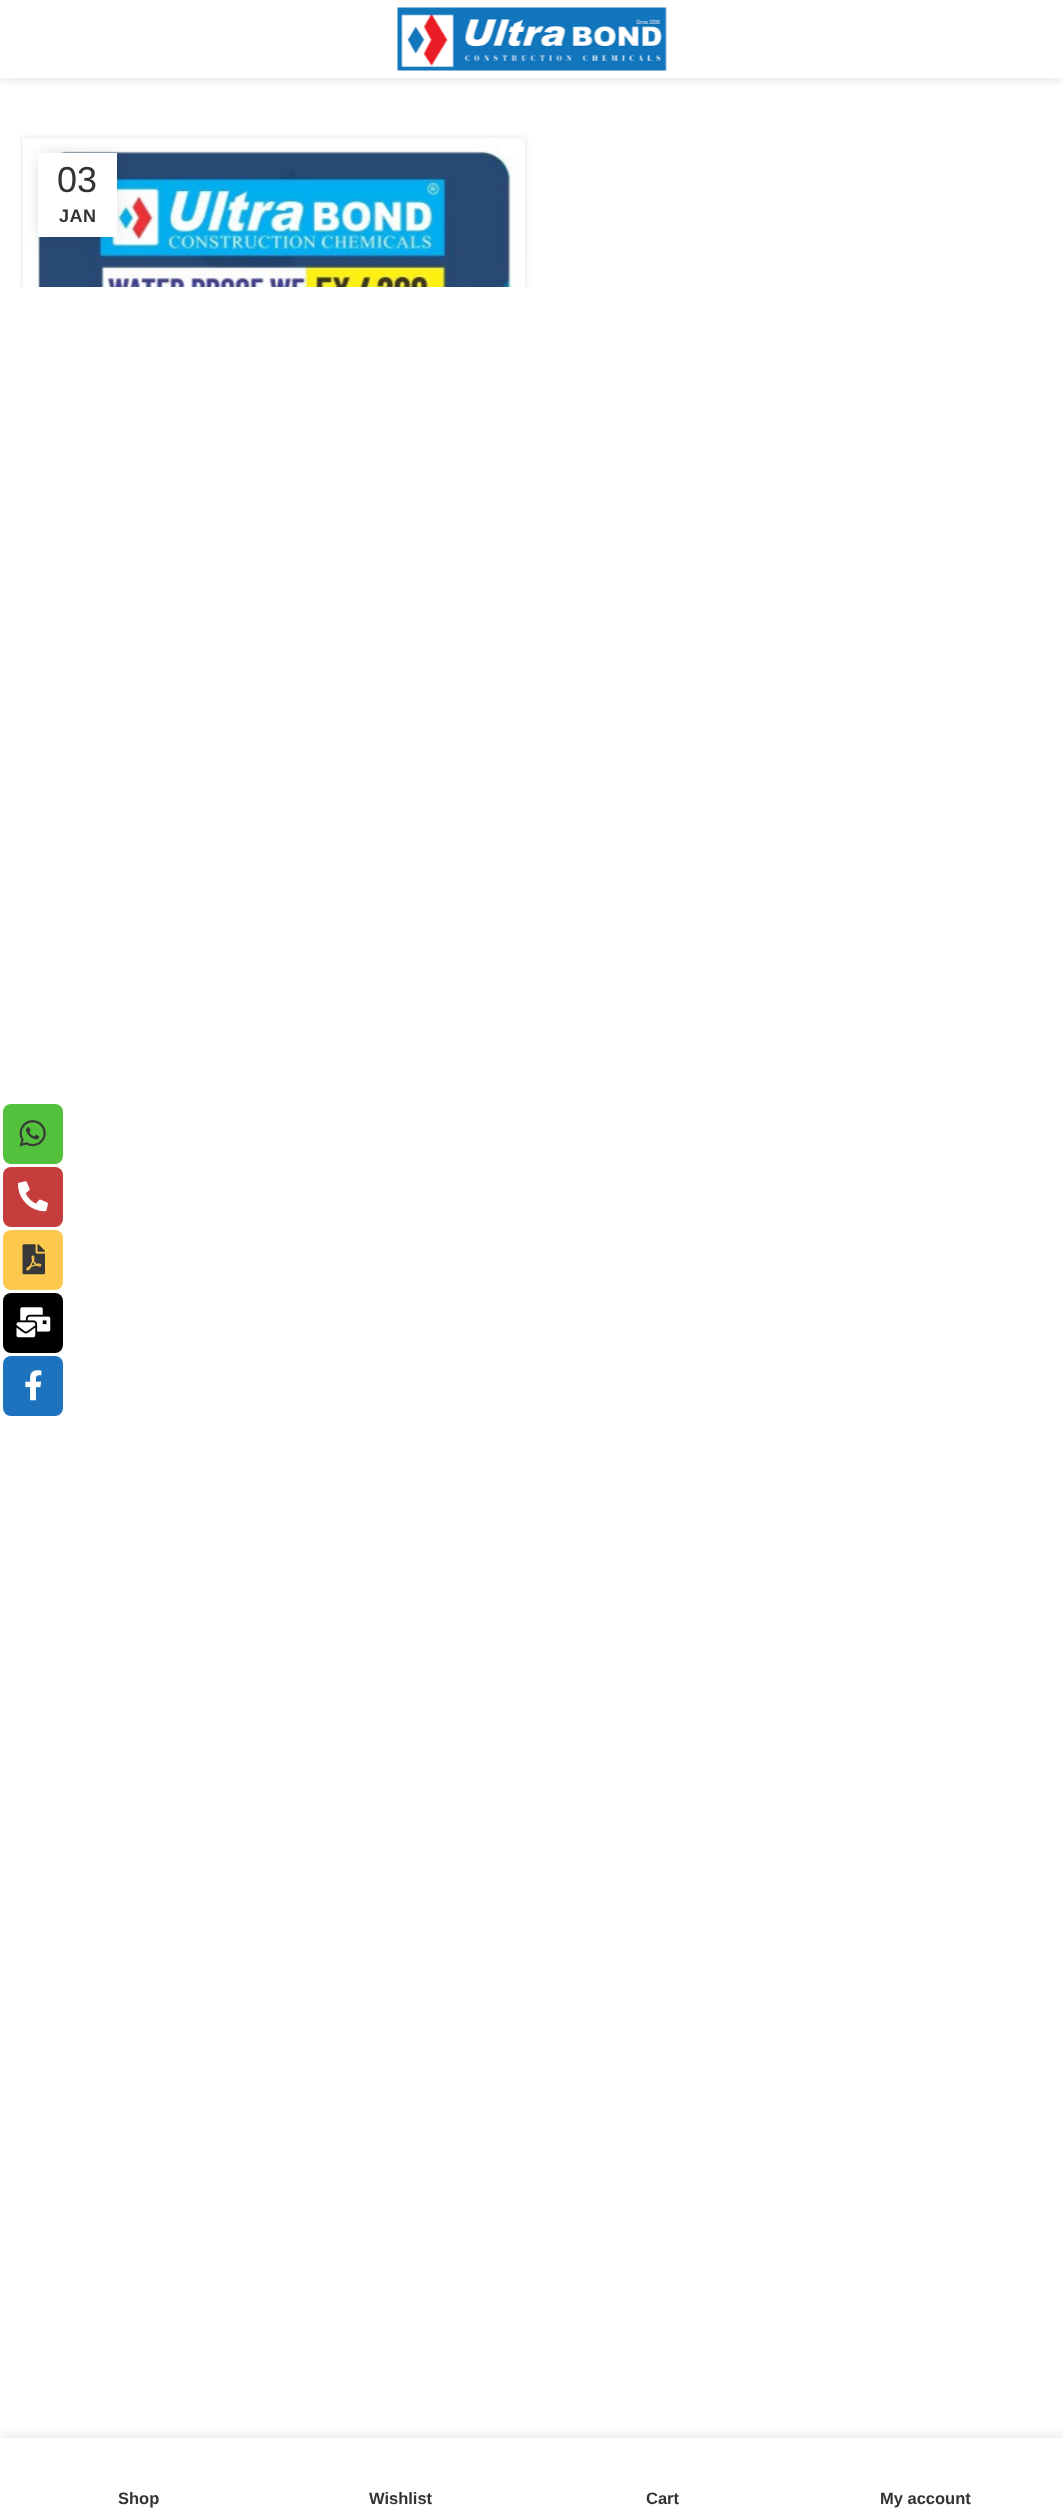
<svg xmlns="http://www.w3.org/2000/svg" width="1063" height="2519">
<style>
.a{font:36px Liberation Sans;fill:#333}
.b{font:bold 18px Liberation Sans;letter-spacing:0.5px;fill:#333}
.c{font:bold 16.5px Liberation Sans;fill:#333}
</style>
<defs>
<clipPath id="clip1"><path d="M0 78h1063v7H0z"/></clipPath>
<clipPath id="clip2"><path d="M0 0h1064v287H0z"/></clipPath>
<clipPath id="clip3"><path d="M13 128h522v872h-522zm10 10h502v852h-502z" clip-rule="evenodd"/></clipPath>
</defs>
<rect width="100%" height="100%" fill="#fff"/>
<g clip-path="url(#clip1)">
<path fill="#0000001a" filter="blur(6px)" d="M0 2h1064v78H0z"/>
</g>
<image href="1.png" x="397" y="7" width="270" height="64"/>
<g clip-path="url(#clip2)">
<g clip-path="url(#clip3)">
<path fill="#0000001f" filter="blur(3px)" d="M23 138h502v852H23z"/>
</g>
</g>
<image href="2.png" x="34" y="138" width="491" height="149"/>
<path fill="#0000001a" filter="blur(7px)" d="M38 153h79v84H38z"/>
<path fill="#fff" d="M38 153h79v84H38z"/>
<rect fill="#54c13c" x="3" y="1104" width="60" height="60" rx="8"/>
<image href="3.png" x="19" y="1120" width="27" height="27"/>
<rect fill="#c63d3d" x="3" y="1167" width="60" height="60" rx="8"/>
<image href="4.png" x="18" y="1181" width="30" height="31"/>
<rect fill="#fcc84e" x="3" y="1230" width="60" height="60" rx="8"/>
<image href="5.png" x="22" y="1244" width="23" height="31"/>
<rect fill="#000" x="3" y="1293" width="60" height="60" rx="8"/>
<image href="6.png" x="16" y="1307" width="35" height="31"/>
<rect fill="#1e73be" x="3" y="1356" width="60" height="60" rx="8"/>
<image href="7.png" x="25" y="1370" width="17" height="31"/>
<path fill="#0000001f" filter="blur(7px)" d="M0 2438h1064v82H0z"/>
<path fill="#fff" d="M0 2438h1063v81H0z"/>
<text class="a" x="57" y="192">03</text>
<text class="b" x="59" y="222">JAN</text>
<text class="c" x="118" y="2504">Shop</text>
<text class="c" x="369" y="2504">Wishlist</text>
<text class="c" x="646" y="2504">Cart</text>
<text class="c" x="880" y="2504">My account</text>
</svg>
